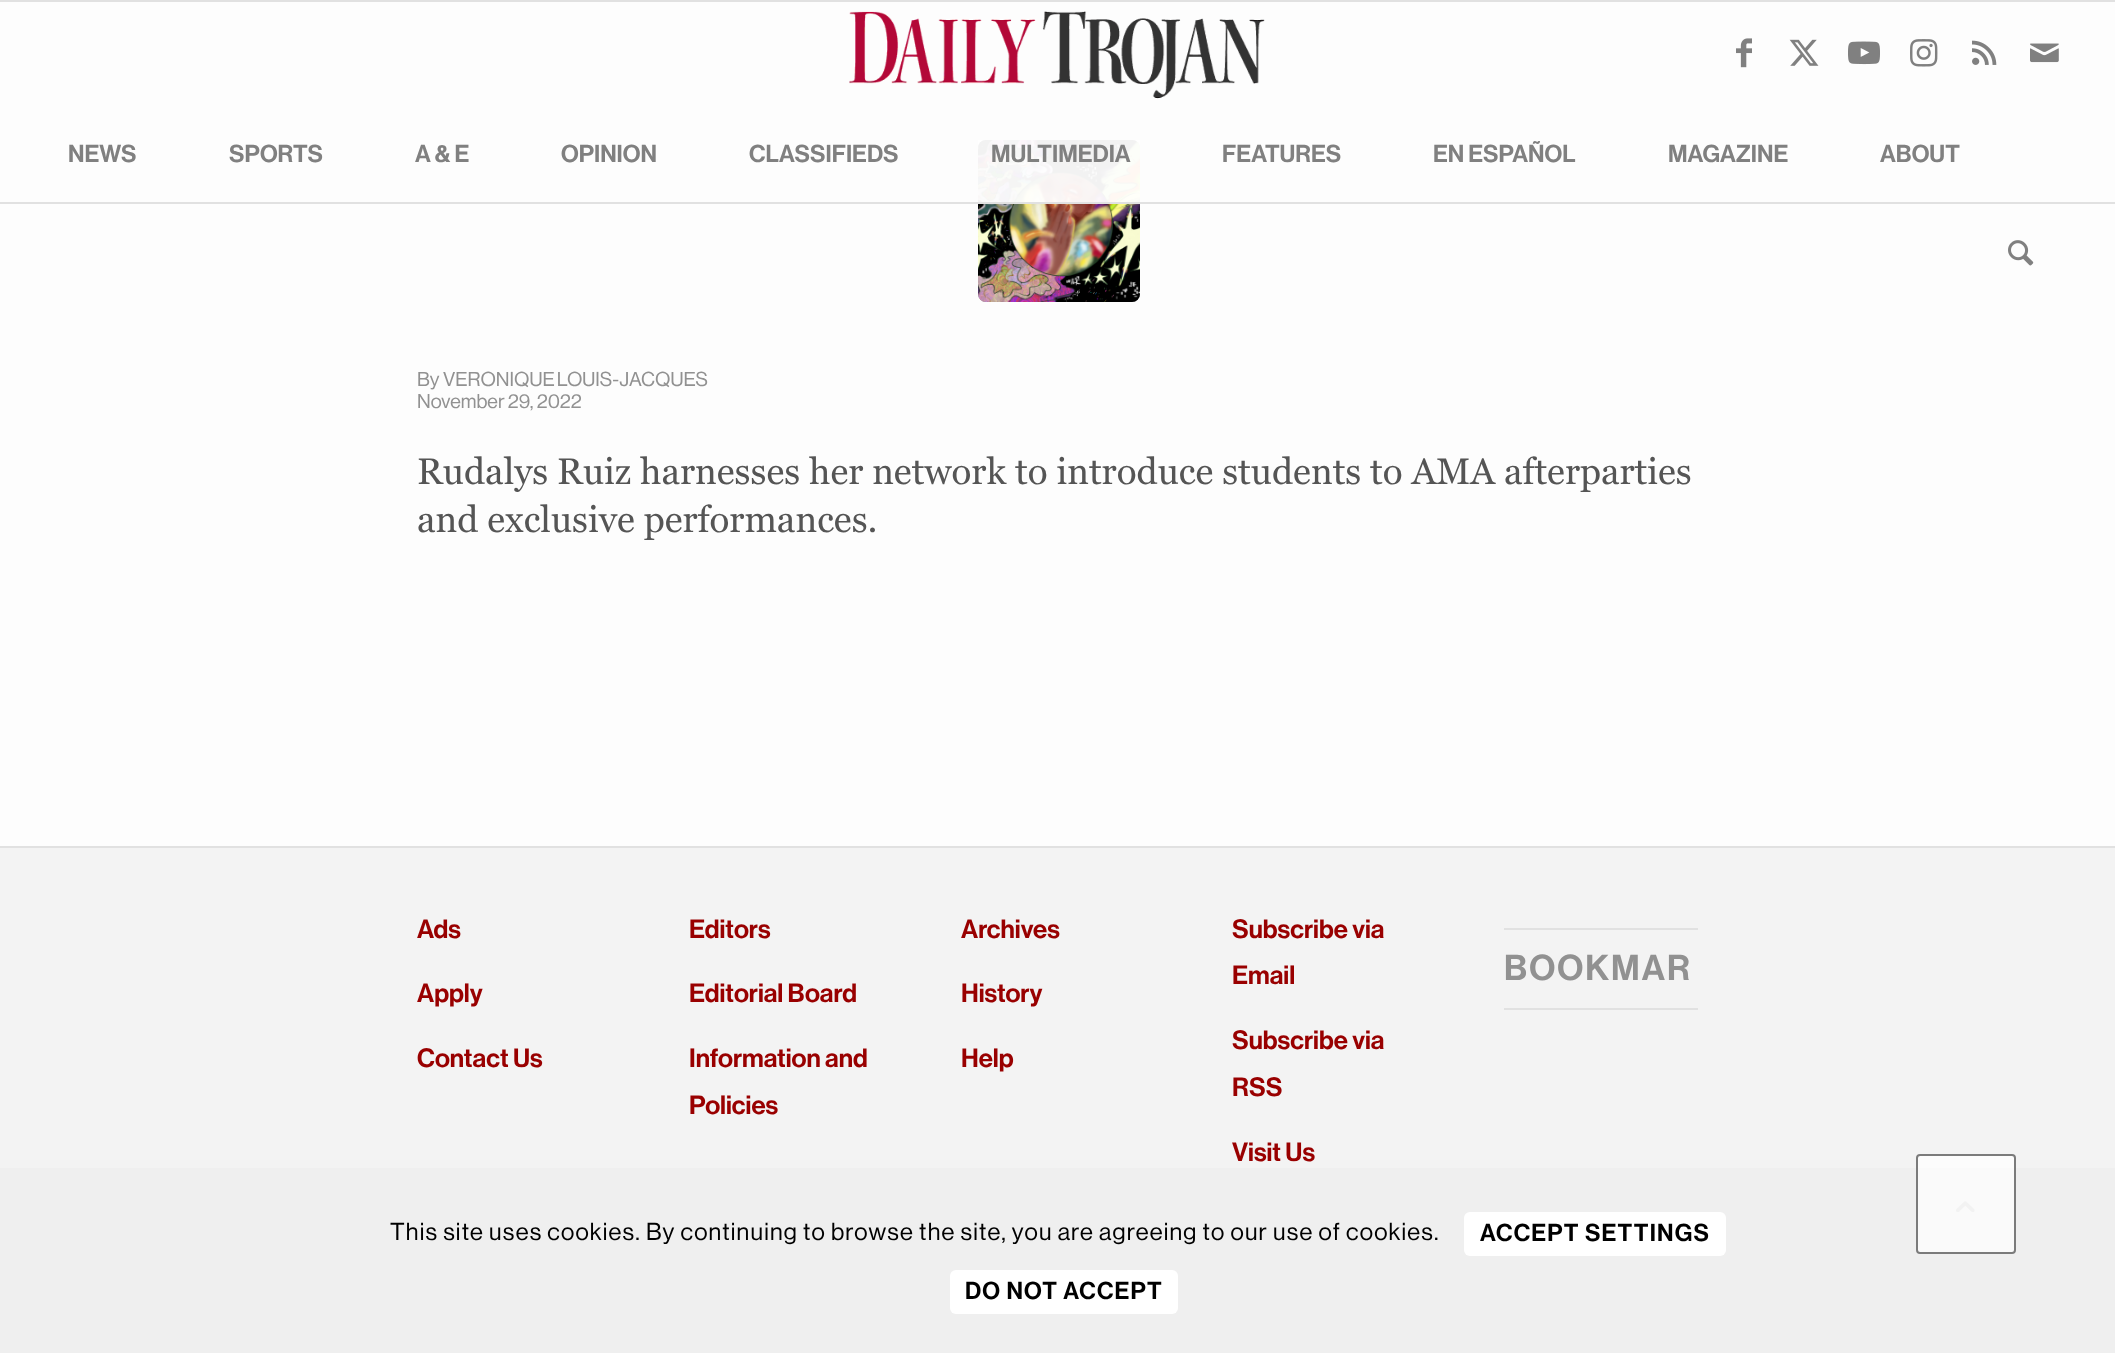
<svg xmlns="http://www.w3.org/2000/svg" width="2115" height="1353">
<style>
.a{font:500 24px 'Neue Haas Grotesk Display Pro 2';fill:#808080}
.b{font:500 19.75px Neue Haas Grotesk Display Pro;fill:#919191}
.c{font:36.8px Georgia;fill:#555}
.d{font:500 26px 'Neue Haas Grotesk Display Pro 2';fill:#900}
.e{font:500 35.25px 'Neue Haas Grotesk Display Pro 2';letter-spacing:2px;fill:#919191}
.f{font:500 24px Neue Haas Grotesk Display Pro;letter-spacing:1.2px;fill:#000}
.g{font:500 24px 'Neue Haas Grotesk Display Pro 2';letter-spacing:1.2px;fill:#000}
</style>
<rect width="100%" height="100%" fill="#fdfdfd"/>
<rect fill="#919191" x="978" y="140" width="162" height="162" rx="8"/>
<image href="9.png" x="978" y="140" width="162" height="162"/>
<path fill="#fffffff2" d="M978 140h162v62H978z"/>
<path fill="#e1e1e1" d="M0 0h2115v2H0z"/>
<path fill="#e1e1e1" d="M0 202h2115v2H0z"/>
<image href="1.png" x="849" y="11" width="416" height="88"/>
<image href="2.png" x="1736" y="38" width="16" height="30"/>
<image href="3.png" x="1789" y="39" width="30" height="27"/>
<image href="4.png" x="1848" y="41" width="32" height="24"/>
<image href="5.png" x="1910" y="39" width="28" height="28"/>
<image href="6.png" x="1972" y="40" width="25" height="25"/>
<image href="7.png" x="2030" y="43" width="29" height="20"/>
<image href="8.png" x="2008" y="240" width="26" height="26"/>
<path fill="#f3f3f3" d="M0 848h2115v320H0z"/>
<path fill="#e1e1e1" d="M0 846h2115v2H0z"/>
<path fill="#e1e1e1" d="M1504 928h194v2H1504z"/>
<path fill="#e1e1e1" d="M1504 1008h194v2H1504z"/>
<path fill="#efefef" d="M0 1168h2115v185H0z"/>
<rect fill="#fff" x="1464" y="1212" width="262" height="44" rx="6"/>
<rect fill="#fff" x="950" y="1270" width="228" height="44" rx="6"/>
<rect fill="#ffffffb3" x="1916" y="1154" width="100" height="100" rx="4"/>
<rect fill="none" stroke="#444444b3" stroke-width="2" x="1917" y="1155" width="98" height="98" rx="3"/>
<image href="10.png" x="1956" y="1201" width="19" height="11"/>
<text class="a" x="68" y="162">NEWS</text>
<text class="a" x="229" y="162">SPORTS</text>
<text class="a" x="415" y="162">A &amp; E</text>
<text class="a" x="561" y="162">OPINION</text>
<text class="a" x="749" y="162">CLASSIFIEDS</text>
<text class="a" x="991" y="162">MULTIMEDIA</text>
<text class="a" x="1222" y="162">FEATURES</text>
<text class="a" x="1433" y="162">EN ESPAÑOL</text>
<text class="a" x="1668" y="162">MAGAZINE</text>
<text class="a" x="1880" y="162">ABOUT</text>
<text class="b" x="417" y="386">By</text>
<text class="b" x="443" y="386" word-spacing="-1">VERONIQUE LOUIS-JACQUES</text>
<text class="b" x="417" y="408">November 29, 2022</text>
<text class="c" x="417" y="484">Rudalys Ruiz harnesses her network to introduce students to AMA afterparties</text>
<text class="c" x="417" y="532">and exclusive performances.</text>
<text class="d" x="417" y="938">Ads</text>
<text class="d" x="417" y="1002">Apply</text>
<text class="d" x="417" y="1067">Contact Us</text>
<text class="d" x="689" y="938">Editors</text>
<text class="d" x="689" y="1002">Editorial Board</text>
<text class="d" x="689" y="1067">Information and</text>
<text class="d" x="689" y="1114">Policies</text>
<text class="d" x="961" y="938">Archives</text>
<text class="d" x="961" y="1002">History</text>
<text class="d" x="961" y="1067">Help</text>
<text class="d" x="1232" y="938">Subscribe via</text>
<text class="d" x="1232" y="984">Email</text>
<text class="d" x="1232" y="1049">Subscribe via</text>
<text class="d" x="1232" y="1096">RSS</text>
<text class="d" x="1232" y="1161">Visit Us</text>
<text class="e" x="1504" y="980">BOOKMAR</text>
<text class="f" x="390" y="1240">This site uses cookies. By continuing to browse the site, you are agreeing to our use of cookies.</text>
<text class="g" x="1480" y="1241">ACCEPT SETTINGS</text>
<text class="g" x="965" y="1299">DO NOT ACCEPT</text>
</svg>
